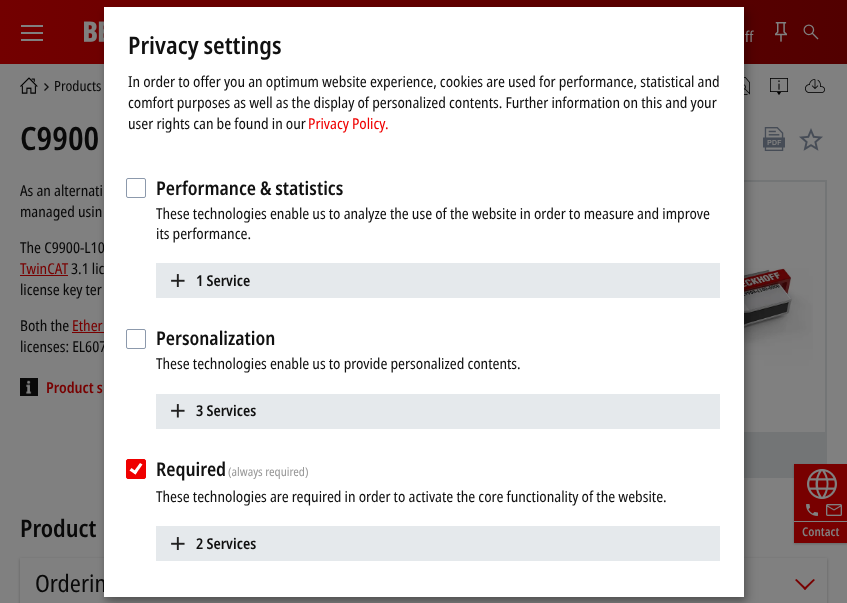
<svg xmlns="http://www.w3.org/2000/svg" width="847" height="603">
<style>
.a{font:15px Noto Sans;fill:#808080}
.b{font:14px Noto Sans;fill:#090909}
.c{font:600 32px Noto Sans;fill:#090909}
.d{font:15px Noto Sans;fill:#090909}
.e{font:15px Noto Sans;fill:#780000}
.f{font:600 15px Noto Sans;fill:#780000}
.g{font:600 24px Noto Sans;fill:#090909}
.h{font:24px Noto Sans;fill:#090909}
.i{font:600 12px Noto Sans;fill:#808080}
.j{font:600 24px Noto Sans;fill:#111}
.k{font:15px Noto Sans;fill:#111}
.l{font:15px Noto Sans;fill:#ef0000}
.m{font:600 19px Noto Sans;fill:#111}
.n{font:600 15px Noto Sans;fill:#111}
.o{font:12px Noto Sans;fill:#999}
</style>
<defs>
<linearGradient id="g1" gradientUnits="userSpaceOnUse" x1="0" y1="32" x2="847" y2="32"><stop offset="0" stop-color="#730000"/><stop offset="1" stop-color="#520000"/></linearGradient>
<clipPath id="clip1"><path d="M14 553h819v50h-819zm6 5h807v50h-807z" clip-rule="evenodd"/></clipPath>
</defs>
<rect width="100%" height="100%" fill="#808080"/>
<path fill="url(#g1)" d="M0 0h847v64H0z"/>
<path fill="#808080" d="M21 25h22v2H21z"/>
<path fill="#808080" d="M21 32h22v2H21z"/>
<path fill="#808080" d="M21 39h22v2H21z"/>
<image href="1.png" x="84" y="21" width="20" height="21"/>
<image href="2.png" x="775" y="22" width="12" height="20"/>
<image href="3.png" x="803" y="24" width="16" height="16"/>
<image href="4.png" x="20" y="77" width="18" height="17"/>
<image href="5.png" x="44" y="83" width="5" height="8"/>
<image href="6.png" x="744" y="77" width="6" height="18"/>
<image href="7.png" x="770" y="78" width="18" height="17"/>
<image href="8.png" x="778" y="80" width="2" height="10"/>
<image href="9.png" x="805" y="79" width="20" height="14"/>
<image href="10.png" x="763" y="127" width="22" height="24"/>
<image href="11.png" x="799" y="128" width="24" height="23"/>
<path fill="#780000" d="M20 275h48v1H20z"/>
<path fill="#780000" d="M72 332h32v1H72z"/>
<path fill="none" stroke="#737576" stroke-width="2" d="M574 181h252v296H574z"/>
<image href="12.png" x="744" y="268" width="69" height="103"/>
<path fill="#737576" d="M744 432h81v44H744z"/>
<path fill="#090909" d="M20 378h18v18H20z"/>
<image href="13.png" x="26" y="378" width="6" height="17"/>
<g clip-path="url(#clip1)">
<path fill="#00000040" filter="blur(1.5px)" d="M20 559h807v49H20z"/>
</g>
<path fill="#780000" d="M813.5 579l1.5 1l-10 10l-1.5-1.5z"/>
<path fill="#780000" d="M796.5 579l10 9.5l-1.5 1.5l-10-10z"/>
<path fill="#00000033" filter="blur(1px)" d="M794 465h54v79H794z"/>
<path fill="#780000" d="M794 464h53v79H794z"/>
<image href="14.png" x="806" y="469" width="36" height="47"/>
<path fill="#808080" d="M794 521h53v1H794z"/>
<path fill="#00000030" filter="blur(5px)" d="M109 12h640v590H109z"/>
<path fill="#00000033" filter="blur(3px)" d="M104 11h640v590H104z"/>
<text class="a" x="745" y="42">ff</text>
<text class="b" x="54" y="91">Products</text>
<text class="c" x="20" y="150">C9900</text>
<text class="d" x="20" y="196">As an alternati</text>
<text class="d" x="20" y="217">managed usin</text>
<text class="d" x="20" y="253">The C9900-L10</text>
<text class="e" x="20" y="274">TwinCAT</text>
<text class="d" x="71" y="274">3.1 lic</text>
<text class="d" x="20" y="295">license key ter</text>
<text class="d" x="20" y="331">Both the</text>
<text class="e" x="72" y="331">Ether</text>
<text class="d" x="20" y="352">licenses: EL607</text>
<text class="f" x="46" y="393">Product s</text>
<text class="g" x="20" y="537">Product</text>
<text class="h" x="35" y="592">Orderin</text>
<text class="i" x="802" y="536">Contact</text>
<path fill="#fff" d="M104 7h640v590H104z"/>
<text class="j" x="128" y="54">Privacy settings</text>
<text class="k" x="128" y="87">In order to offer you an optimum website experience, cookies are used for performance, statistical and</text>
<text class="k" x="128" y="108">comfort purposes as well as the display of personalized contents. Further information on this and your</text>
<text class="k" x="128" y="129">user rights can be found in our</text>
<text class="l" x="308" y="129">Privacy Policy.</text>
<rect fill="none" stroke="#8c99ac" x="126.5" y="178.5" width="19" height="19" rx="1.5"/>
<text class="m" x="156" y="195">Performance &amp; statistics</text>
<text class="k" x="156" y="219">These technologies enable us to analyze the use of the website in order to measure and improve</text>
<text class="k" x="156" y="239">its performance.</text>
<path fill="#e5e9ec" d="M156 263h564v35H156z"/>
<image href="15.png" x="171" y="274" width="14" height="13"/>
<text class="n" x="196" y="286">1 Service</text>
<rect fill="none" stroke="#8c99ac" x="126.5" y="329.5" width="19" height="19" rx="1.5"/>
<text class="m" x="156" y="345">Personalization</text>
<text class="k" x="156" y="369">These technologies enable us to provide personalized contents.</text>
<path fill="#e5e9ec" d="M156 394h564v35H156z"/>
<image href="16.png" x="171" y="404" width="14" height="14"/>
<text class="n" x="196" y="416">3 Services</text>
<rect fill="#ef0000" stroke="#ef0000" x="126.5" y="459.5" width="19" height="19" rx="1.5"/>
<text class="m" x="156" y="476">Required</text>
<path fill="#fff" d="M140 463l2.5 1.5l-7 10l-2.5-2z"/>
<path fill="#fff" d="M131.5 468l5.5 4l-1.5 2.5l-6-4z"/>
<text class="o" x="228" y="476">(always required)</text>
<text class="k" x="156" y="502">These technologies are required in order to activate the core functionality of the website.</text>
<path fill="#e5e9ec" d="M156 526h564v35H156z"/>
<image href="15.png" x="171" y="537" width="14" height="13"/>
<text class="n" x="196" y="549">2 Services</text>
</svg>
